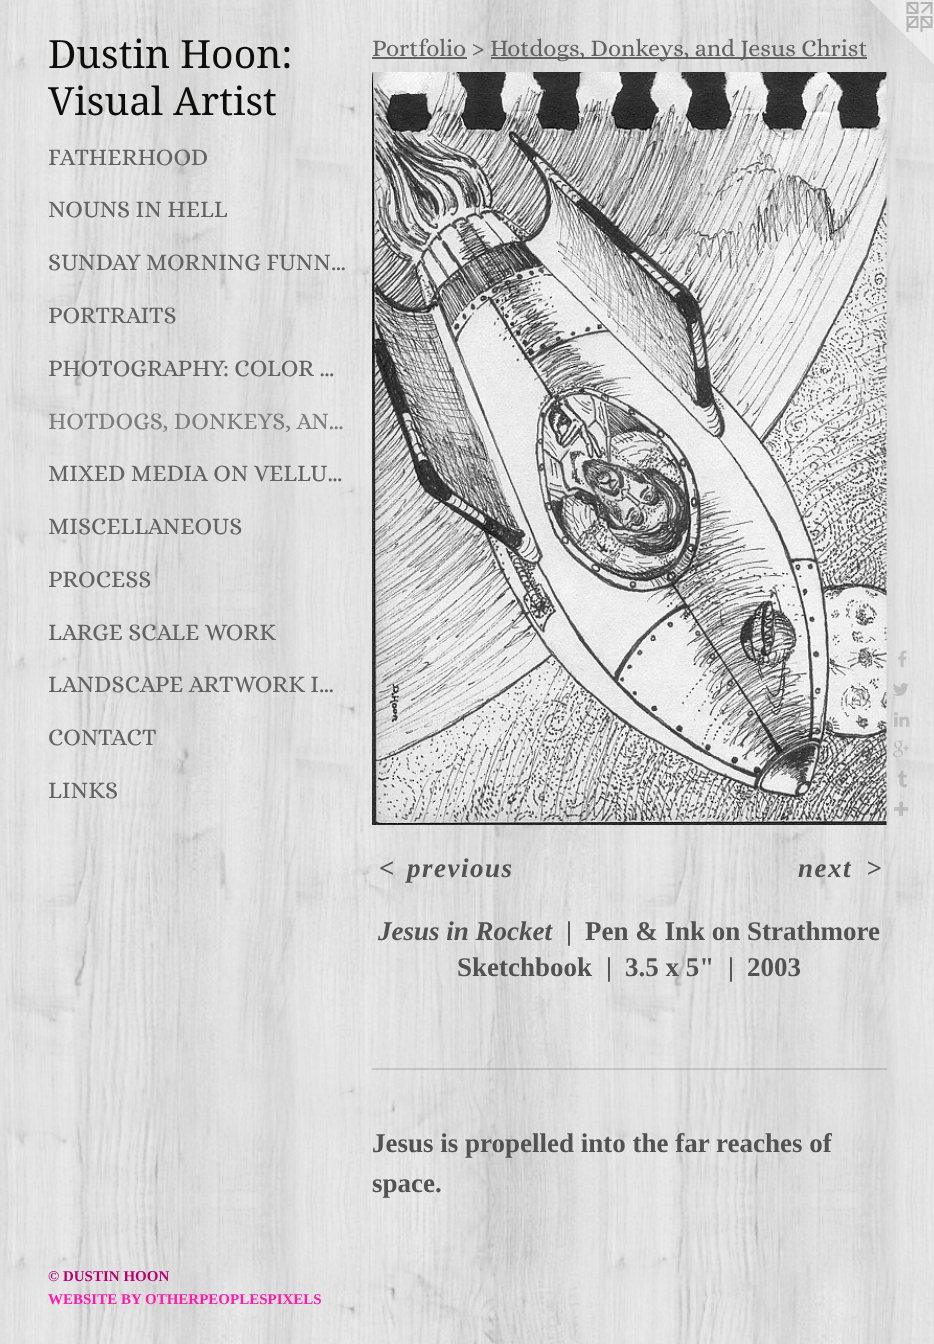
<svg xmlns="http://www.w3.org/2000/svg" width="934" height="1344">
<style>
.a{font:39px Droid Serif;fill:#0e0e0c}
.b{font:24px Alice;fill:#636363}
.c{font:24px Alice;fill:#7d7d7d}
.d{font:bold 15px Liberation Serif;fill:#b80072}
.e{font:bold 15px Liberation Serif;fill:#ff1aa8}
.f{font:italic bold 27px Liberation Serif;letter-spacing:1.5px;fill:#525252}
.g{font:italic bold 27px Liberation Serif;fill:#525252}
.h{font:bold 27px Liberation Serif;fill:#525252}
</style>
<rect width="100%" height="100%" fill="#fff"/>
<image href="1.png" x="0" y="0" width="934" height="1344"/>
<path fill="#636363" d="M372 57h95v2H372z"/>
<path fill="#636363" d="M491 57h376v2H491z"/>
<image href="3.png" x="898" y="650" width="9" height="18"/>
<image href="4.png" x="893" y="683" width="16" height="13"/>
<image href="5.png" x="894" y="712" width="16" height="15"/>
<image href="6.png" x="892" y="740" width="17" height="18"/>
<image href="7.png" x="897" y="770" width="10" height="18"/>
<image href="8.png" x="894" y="801" width="15" height="15"/>
<path fill="#52525233" d="M372 1068h515v2H372z"/>
<text class="a" x="48" y="68">Dustin Hoon:</text>
<text class="a" x="48" y="115">Visual Artist</text>
<text class="b" x="48" y="165">FATHERHOOD</text>
<text class="b" x="48" y="217">NOUNS IN HELL</text>
<text class="b" x="48" y="270">SUNDAY MORNING FUNN…</text>
<text class="b" x="48" y="323">PORTRAITS</text>
<text class="b" x="48" y="376">PHOTOGRAPHY: COLOR …</text>
<text class="c" x="48" y="429">HOTDOGS, DONKEYS, AN…</text>
<text class="b" x="48" y="481">MIXED MEDIA ON VELLU…</text>
<text class="b" x="48" y="534">MISCELLANEOUS</text>
<text class="b" x="48" y="587">PROCESS</text>
<text class="b" x="48" y="640">LARGE SCALE WORK</text>
<text class="b" x="48" y="692">LANDSCAPE ARTWORK I…</text>
<text class="b" x="48" y="745">CONTACT</text>
<text class="b" x="48" y="798">LINKS</text>
<text class="d" x="48" y="1281">© DUSTIN HOON</text>
<text class="e" x="48" y="1304">WEBSITE BY OTHERPEOPLESPIXELS</text>
<text class="b" x="372" y="56">Portfolio &gt;</text>
<text class="b" x="490" y="56">Hotdogs, Donkeys, and Jesus Christ</text>
<text class="f" x="379" y="877">&lt;</text>
<text class="f" x="407" y="877">previous</text>
<text class="f" x="798" y="877">next</text>
<text class="f" x="866" y="877">&gt;</text>
<text class="g" x="378" y="940">Jesus in Rocket</text>
<text class="h" x="566" y="940">|</text>
<text class="h" x="585" y="940">Pen &amp; Ink on Strathmore</text>
<text class="h" x="457" y="976">Sketchbook</text>
<text class="h" x="606" y="976">|</text>
<text class="h" x="625" y="976">3.5 x 5"</text>
<text class="h" x="728" y="976">|</text>
<text class="h" x="747" y="976">2003</text>
<text class="h" x="372" y="1152">Jesus is propelled into the far reaches of</text>
<text class="h" x="372" y="1192">space.</text>
<image href="9.png" x="851" y="0" width="83" height="83"/>
<image href="2.png" x="372" y="72" width="515" height="753"/>
</svg>
